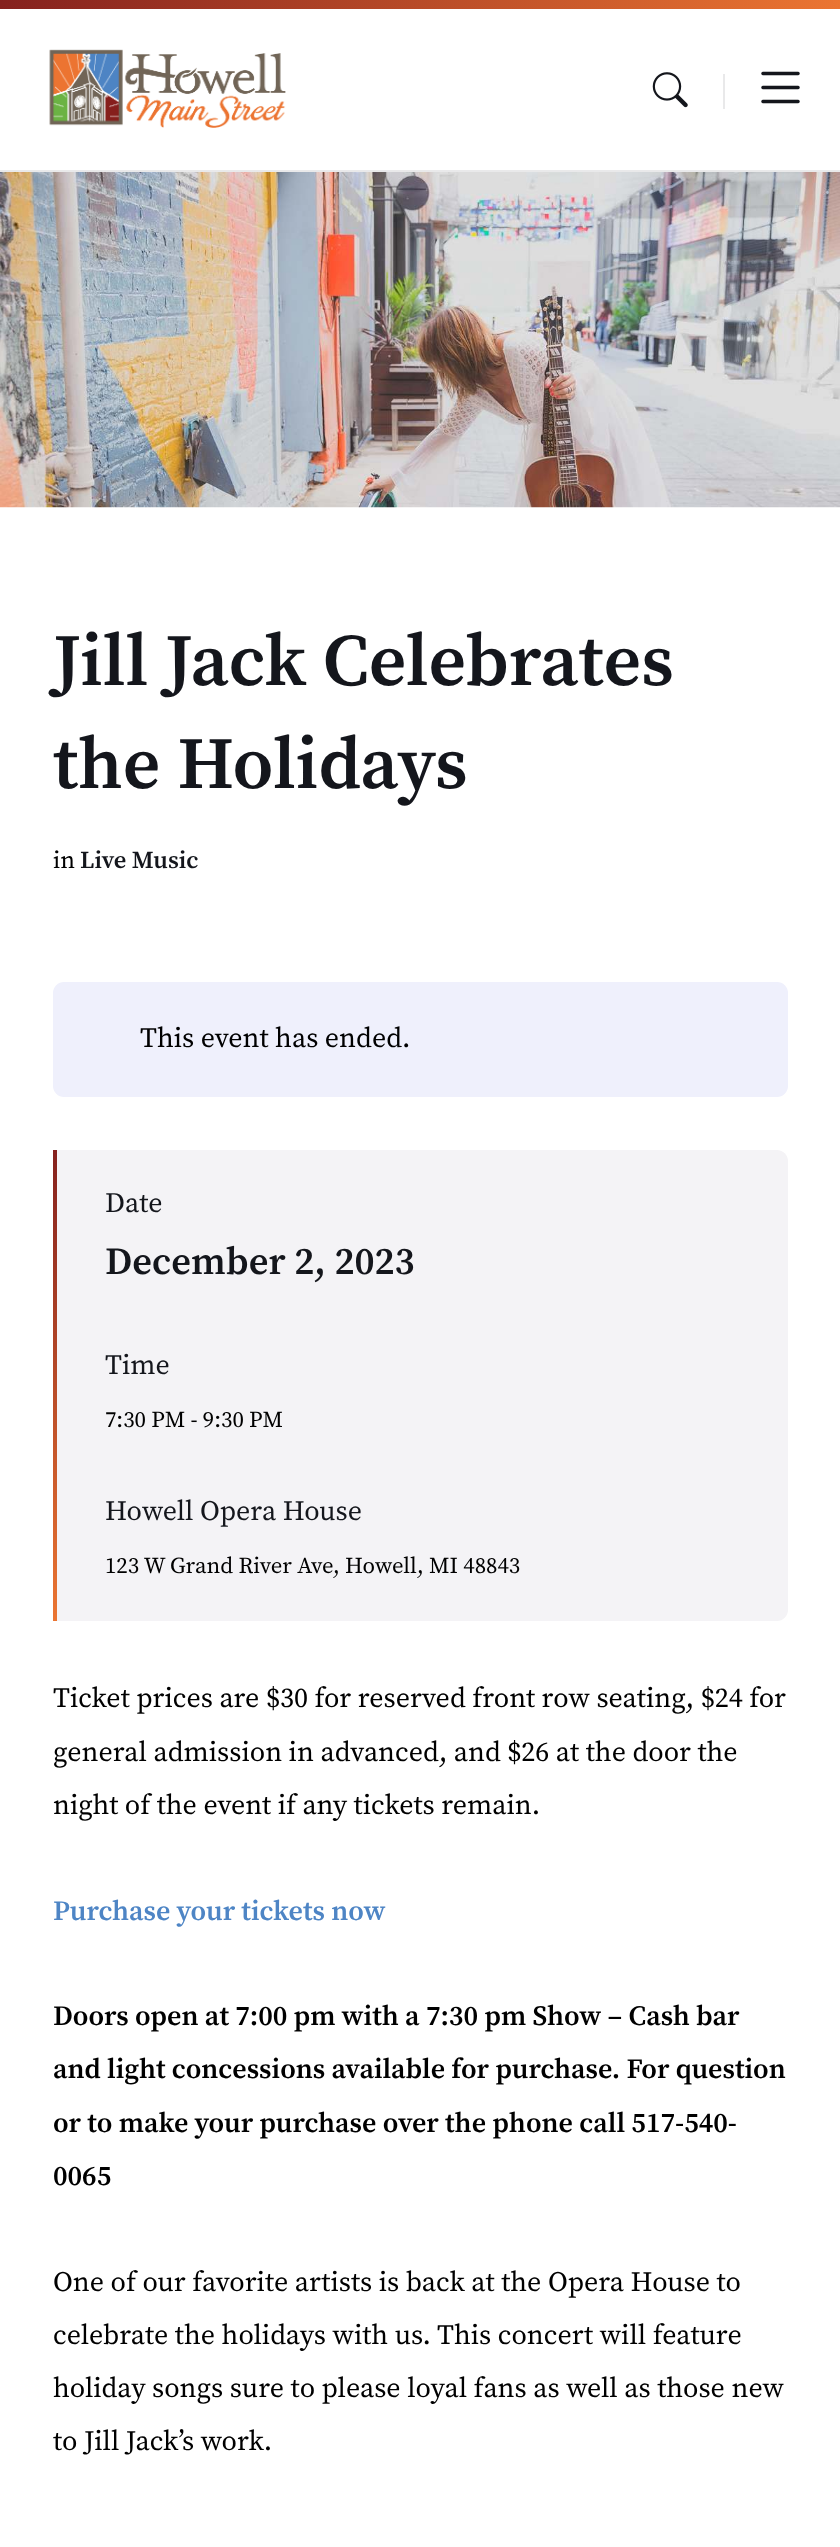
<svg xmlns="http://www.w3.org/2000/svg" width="840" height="2547">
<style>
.a{font:600 73.5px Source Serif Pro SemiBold;fill:#14161c}
.b{font:24.5px Source Serif Pro;fill:#000}
.c{font:600 24.5px Source Serif Pro SemiBold;fill:#14161c}
.d{font:28px Source Serif Pro;fill:#000}
.e{font:28px Source Serif Pro;fill:#14161c}
.f{font:600 38.5px Source Serif Pro SemiBold;fill:#14161c}
.g{font:22.75px Source Serif Pro;fill:#000}
.h{font:600 28px Source Serif Pro SemiBold;fill:#4e85c5}
.i{font:600 28px Source Serif Pro SemiBold;fill:#000}
</style>
<defs>
<linearGradient id="g1" gradientUnits="userSpaceOnUse" x1="0" y1="4.4" x2="840" y2="4.4"><stop offset="0" stop-color="#85211e"/><stop offset="1" stop-color="#eb7532"/></linearGradient>
<linearGradient id="g2" gradientUnits="userSpaceOnUse" x1="54" y1="1150" x2="54" y2="1621"><stop offset="0" stop-color="#85211e"/><stop offset="1" stop-color="#eb7532"/></linearGradient>
</defs>
<rect width="100%" height="100%" fill="#fff"/>
<path fill="#e9e9ea" d="M0 170h840v2H0z"/>
<path fill="url(#g1)" d="M0 0h840v9H0z"/>
<image href="1.png" x="49" y="49" width="237" height="79"/>
<image href="2.png" x="652" y="72" width="36" height="36"/>
<path fill="#e9e9ea" d="M723 74h2v35H723z"/>
<image href="3.png" x="761" y="71" width="39" height="33"/>
<image href="4.png" x="0" y="172" width="840" height="336"/>
<rect fill="#eff0fc" x="53" y="982" width="735" height="115" rx="11"/>
<path fill="#f4f3f6" d="M53 1150h724c6 0 11 5 11 11v449c0 6-5 11-11 11h-724z"/>
<path fill="url(#g2)" d="M53 1150h4v471H53z"/>
<text class="a" x="53" y="685">Jill Jack Celebrates</text>
<text class="a" x="53" y="788">the Holidays</text>
<text class="b" x="53" y="868">in</text>
<text class="c" x="80" y="868">Live Music</text>
<text class="d" x="140" y="1047">This event has ended.</text>
<text class="e" x="105" y="1212">Date</text>
<text class="f" x="105" y="1274">December 2, 2023</text>
<text class="e" x="105" y="1374">Time</text>
<text class="g" x="105" y="1427">7:30 PM - 9:30 PM</text>
<text class="e" x="105" y="1520">Howell Opera House</text>
<text class="g" x="105" y="1573">123 W Grand River Ave, Howell, MI 48843</text>
<text class="d" x="53" y="1707">Ticket prices are $30 for reserved front row seating, $24 for</text>
<text class="d" x="53" y="1761">general admission in advanced, and $26 at the door the</text>
<text class="d" x="53" y="1814">night of the event if any tickets remain.</text>
<text class="h" x="53" y="1920">Purchase your tickets now</text>
<text class="i" x="53" y="2025">Doors open at 7:00 pm with a 7:30 pm Show – Cash bar</text>
<text class="i" x="53" y="2078">and light concessions available for purchase. For question</text>
<text class="i" x="53" y="2132">or to make your purchase over the phone call 517-540-</text>
<text class="i" x="53" y="2185">0065</text>
<text class="d" x="53" y="2291">One of our favorite artists is back at the Opera House to</text>
<text class="d" x="53" y="2344">celebrate the holidays with us. This concert will feature</text>
<text class="d" x="53" y="2397">holiday songs sure to please loyal fans as well as those new</text>
<text class="d" x="53" y="2450">to Jill Jack’s work.</text>
</svg>
